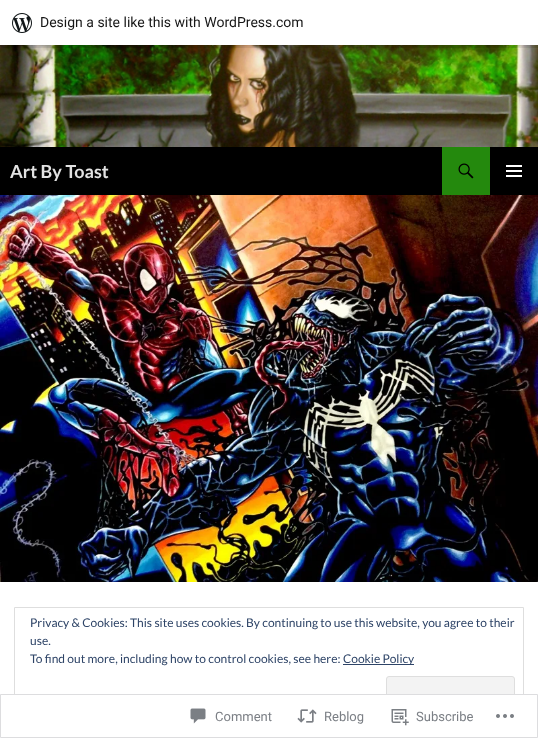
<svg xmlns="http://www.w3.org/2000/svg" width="538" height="738">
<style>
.a{font:14px Roboto;fill:#171717}
.b{font:bold 18px Lato;fill:#e2e2e2}
.c{font:12px Lato;fill:#2e4467}
.d{font:13px Roboto;fill:#7b7f85}
</style>
<rect width="100%" height="100%" fill="#fff"/>
<image href="2.png" x="0" y="45" width="538" height="102"/>
<path fill="#0000000d" filter="blur(1px)" d="M0 1h538v45H0z"/>
<path fill="#00000014" d="M1 45v3h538v-45h-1v42z"/>
<path fill="#fff" d="M0 0h538v45H0z"/>
<image href="1.png" x="12" y="13" width="20" height="20"/>
<path fill="#000" d="M0 147h538v48H0z"/>
<path fill="#24890d" d="M442 147h48v48H442z"/>
<image href="3.png" x="458" y="163" width="16" height="16"/>
<image href="4.png" x="506" y="165" width="16" height="12"/>
<image href="5.png" x="0" y="195" width="538" height="387"/>
<path fill="none" stroke="#dedede" d="M14.5 607.5h509v116H14.5z"/>
<path fill="#2e4467" d="M343 664h71v1H343z"/>
<rect fill="#f3f3f3" stroke="#dedede" x="386.5" y="676.5" width="128" height="38" rx="2.5"/>
<path fill="#fffffffa" d="M14 694h510v30H14z"/>
<path fill="none" stroke="#dcdcdefa" d="M0.5 694.5h537v43H0.5z"/>
<image href="6.png" x="190" y="708" width="16" height="16"/>
<image href="7.png" x="297" y="709" width="20" height="14"/>
<image href="8.png" x="391" y="709" width="18" height="17"/>
<image href="9.png" x="496" y="714" width="18" height="4"/>
<text class="a" x="40" y="27">Design a site like this with WordPress.com</text>
<text class="b" x="10" y="178">Art By Toast</text>
<text class="c" x="30" y="627">Privacy &amp; Cookies: This site uses cookies. By continuing to use this website, you agree to their</text>
<text class="c" x="30" y="645">use.</text>
<text class="c" x="30" y="663">To find out more, including how to control cookies, see here:</text>
<text class="c" x="343" y="663">Cookie Policy</text>
<text class="d" x="215" y="721">Comment</text>
<text class="d" x="324" y="721">Reblog</text>
<text class="d" x="416" y="721">Subscribe</text>
</svg>
